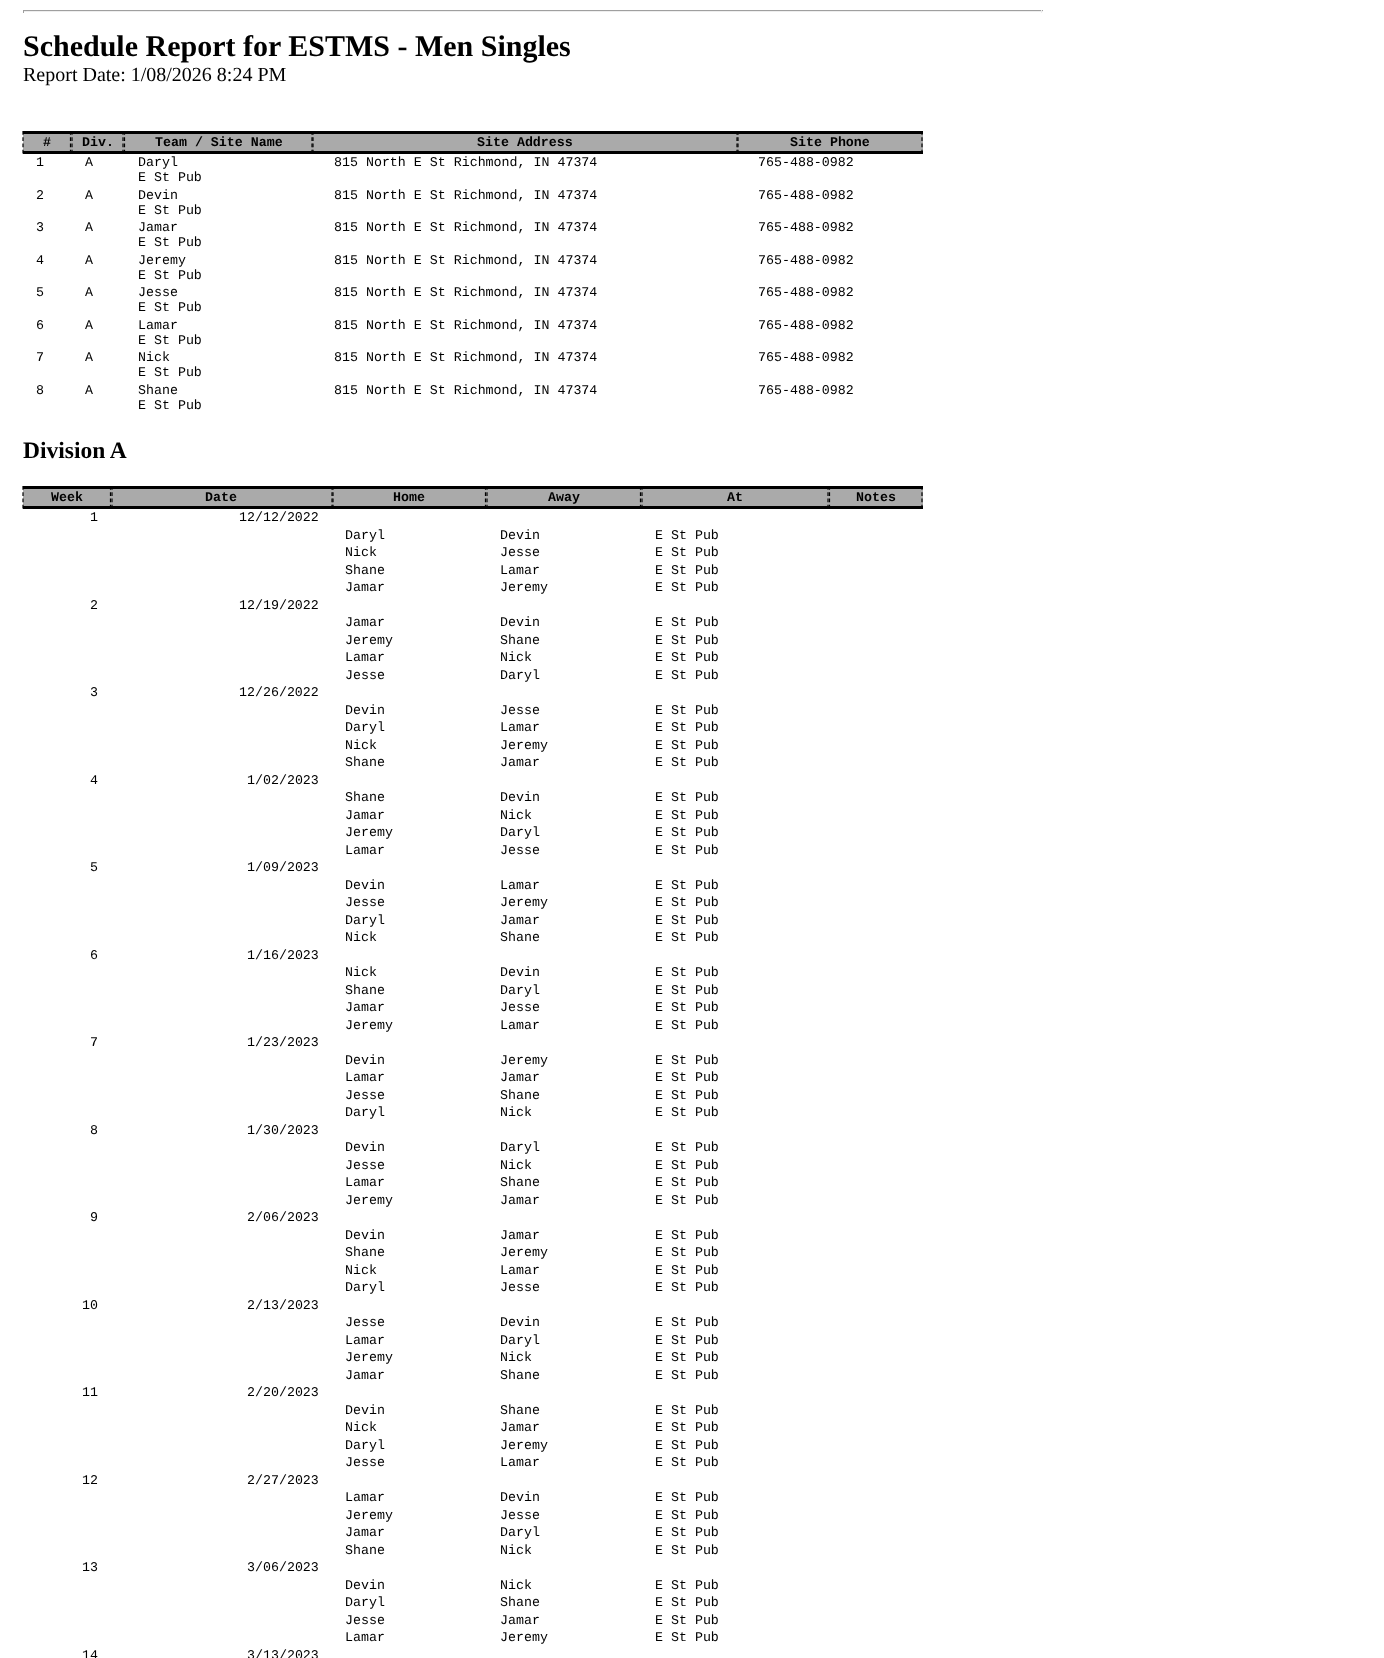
<svg xmlns="http://www.w3.org/2000/svg" width="1384" height="1658">
<style>
.a{font:bold 30px Liberation Serif;fill:#000}
.b{font:20px Liberation Serif;fill:#000}
.c{font:bold 13.3px Liberation Mono;fill:#000}
.d{font:13.3px Liberation Mono;fill:#000}
.e{font:bold 23.5px Liberation Serif;fill:#000}
</style>
<rect width="100%" height="100%" fill="#fff"/>
<path fill="#9f9f9f" d="M23 10h1020v1H23z"/>
<path fill="#eee" d="M1041 10h1v3H1041z"/>
<path fill="#eee" d="M23 11h1020v1H23z"/>
<path fill="#9f9f9f" d="M23 10h1v3H23z"/>
<path fill="#aaa" d="M23 134h48v17H23z"/>
<path fill="#000" d="M23 131h48v3H23z"/>
<path fill="none" stroke="#000" stroke-width="1.2" stroke-dasharray="3.75 2.5" d="M70.5 131v23"/>
<path fill="#000" d="M23 151h48v3H23z"/>
<path fill="none" stroke="#000" stroke-width="1.2" stroke-dasharray="3.75 2.5" d="M23 131v23"/>
<path fill="#aaa" d="M71 134h852v17H71z"/>
<path fill="#000" d="M71 131h852v3H71z"/>
<path fill="none" stroke="#000" stroke-width="1.2" stroke-dasharray="3.75 2.5" d="M123 131v23"/>
<path fill="#000" d="M71 151h53v3H71z"/>
<path fill="none" stroke="#000" stroke-width="1.2" stroke-dasharray="3.75 2.5" d="M72 131v23"/>
<path fill="none" stroke="#000" stroke-width="1.2" stroke-dasharray="3.75 2.5" d="M312 131v23"/>
<path fill="#000" d="M124 151h189v3H124z"/>
<path fill="none" stroke="#000" stroke-width="1.2" stroke-dasharray="3.75 2.5" d="M124.5 131v23"/>
<path fill="none" stroke="#000" stroke-width="1.2" stroke-dasharray="3.75 2.5" d="M737 131v23"/>
<path fill="#000" d="M313 151h425v3H313z"/>
<path fill="none" stroke="#000" stroke-width="1.2" stroke-dasharray="3.75 2.5" d="M313 131v23"/>
<path fill="none" stroke="#000" stroke-width="1.2" stroke-dasharray="3.75 2.5" d="M922 131v23"/>
<path fill="#000" d="M738 151h185v3H738z"/>
<path fill="none" stroke="#000" stroke-width="1.2" stroke-dasharray="3.75 2.5" d="M738 131v23"/>
<path fill="#aaa" d="M23 489h88v17H23z"/>
<path fill="#000" d="M23 486h88v3H23z"/>
<path fill="none" stroke="#000" stroke-width="1.2" stroke-dasharray="3.75 2.5" d="M110.5 486v23"/>
<path fill="#000" d="M23 506h88v3H23z"/>
<path fill="none" stroke="#000" stroke-width="1.2" stroke-dasharray="3.75 2.5" d="M23 486v23"/>
<path fill="#aaa" d="M111 489h375v17H111z"/>
<path fill="#000" d="M111 486h375v3H111z"/>
<path fill="none" stroke="#000" stroke-width="1.2" stroke-dasharray="3.75 2.5" d="M332 486v23"/>
<path fill="#000" d="M111 506h222v3H111z"/>
<path fill="none" stroke="#000" stroke-width="1.2" stroke-dasharray="3.75 2.5" d="M112 486v23"/>
<path fill="none" stroke="#000" stroke-width="1.2" stroke-dasharray="3.75 2.5" d="M485.5 486v23"/>
<path fill="#000" d="M333 506h153v3H333z"/>
<path fill="none" stroke="#000" stroke-width="1.2" stroke-dasharray="3.75 2.5" d="M333 486v23"/>
<path fill="#aaa" d="M486 489h155v17H486z"/>
<path fill="#000" d="M486 486h155v3H486z"/>
<path fill="none" stroke="#000" stroke-width="1.2" stroke-dasharray="3.75 2.5" d="M640.5 486v23"/>
<path fill="#000" d="M486 506h155v3H486z"/>
<path fill="none" stroke="#000" stroke-width="1.2" stroke-dasharray="3.75 2.5" d="M487 486v23"/>
<path fill="#aaa" d="M641 489h282v17H641z"/>
<path fill="#000" d="M641 486h282v3H641z"/>
<path fill="none" stroke="#000" stroke-width="1.2" stroke-dasharray="3.75 2.5" d="M828 486v23"/>
<path fill="#000" d="M641 506h188v3H641z"/>
<path fill="none" stroke="#000" stroke-width="1.2" stroke-dasharray="3.75 2.5" d="M642 486v23"/>
<path fill="none" stroke="#000" stroke-width="1.2" stroke-dasharray="3.75 2.5" d="M922 486v23"/>
<path fill="#000" d="M829 506h94v3H829z"/>
<path fill="none" stroke="#000" stroke-width="1.2" stroke-dasharray="3.75 2.5" d="M829.5 486v23"/>
<text class="a" x="23" y="56">Schedule Report for ESTMS - Men Singles</text>
<text class="b" x="23" y="81">Report Date: 1/08/2026 8:24 PM</text>
<text class="c" x="43" y="146">#</text>
<text class="c" x="82" y="146">Div.</text>
<text class="c" x="155" y="146">Team / Site Name</text>
<text class="c" x="477" y="146">Site Address</text>
<text class="c" x="790" y="146">Site Phone</text>
<text class="d" x="36" y="166">1</text>
<text class="d" x="85" y="166">A</text>
<text class="d" x="138" y="166">Daryl</text>
<text class="d" x="138" y="181">E St Pub</text>
<text class="d" x="334" y="166">815 North E St Richmond, IN 47374</text>
<text class="d" x="758" y="166">765-488-0982</text>
<text class="d" x="36" y="199">2</text>
<text class="d" x="85" y="199">A</text>
<text class="d" x="138" y="199">Devin</text>
<text class="d" x="138" y="214">E St Pub</text>
<text class="d" x="334" y="199">815 North E St Richmond, IN 47374</text>
<text class="d" x="758" y="199">765-488-0982</text>
<text class="d" x="36" y="231">3</text>
<text class="d" x="85" y="231">A</text>
<text class="d" x="138" y="231">Jamar</text>
<text class="d" x="138" y="246">E St Pub</text>
<text class="d" x="334" y="231">815 North E St Richmond, IN 47374</text>
<text class="d" x="758" y="231">765-488-0982</text>
<text class="d" x="36" y="264">4</text>
<text class="d" x="85" y="264">A</text>
<text class="d" x="138" y="264">Jeremy</text>
<text class="d" x="138" y="279">E St Pub</text>
<text class="d" x="334" y="264">815 North E St Richmond, IN 47374</text>
<text class="d" x="758" y="264">765-488-0982</text>
<text class="d" x="36" y="296">5</text>
<text class="d" x="85" y="296">A</text>
<text class="d" x="138" y="296">Jesse</text>
<text class="d" x="138" y="311">E St Pub</text>
<text class="d" x="334" y="296">815 North E St Richmond, IN 47374</text>
<text class="d" x="758" y="296">765-488-0982</text>
<text class="d" x="36" y="329">6</text>
<text class="d" x="85" y="329">A</text>
<text class="d" x="138" y="329">Lamar</text>
<text class="d" x="138" y="344">E St Pub</text>
<text class="d" x="334" y="329">815 North E St Richmond, IN 47374</text>
<text class="d" x="758" y="329">765-488-0982</text>
<text class="d" x="36" y="361">7</text>
<text class="d" x="85" y="361">A</text>
<text class="d" x="138" y="361">Nick</text>
<text class="d" x="138" y="376">E St Pub</text>
<text class="d" x="334" y="361">815 North E St Richmond, IN 47374</text>
<text class="d" x="758" y="361">765-488-0982</text>
<text class="d" x="36" y="394">8</text>
<text class="d" x="85" y="394">A</text>
<text class="d" x="138" y="394">Shane</text>
<text class="d" x="138" y="409">E St Pub</text>
<text class="d" x="334" y="394">815 North E St Richmond, IN 47374</text>
<text class="d" x="758" y="394">765-488-0982</text>
<text class="e" x="23" y="458">Division A</text>
<text class="c" x="51" y="501">Week</text>
<text class="c" x="205" y="501">Date</text>
<text class="c" x="393" y="501">Home</text>
<text class="c" x="548" y="501">Away</text>
<text class="c" x="727" y="501">At</text>
<text class="c" x="856" y="501">Notes</text>
<text class="d" x="90" y="521">1</text>
<text class="d" x="239" y="521">12/12/2022</text>
<text class="d" x="345" y="539">Daryl</text>
<text class="d" x="500" y="539">Devin</text>
<text class="d" x="655" y="539">E St Pub</text>
<text class="d" x="345" y="556">Nick</text>
<text class="d" x="500" y="556">Jesse</text>
<text class="d" x="655" y="556">E St Pub</text>
<text class="d" x="345" y="574">Shane</text>
<text class="d" x="500" y="574">Lamar</text>
<text class="d" x="655" y="574">E St Pub</text>
<text class="d" x="345" y="591">Jamar</text>
<text class="d" x="500" y="591">Jeremy</text>
<text class="d" x="655" y="591">E St Pub</text>
<text class="d" x="90" y="609">2</text>
<text class="d" x="239" y="609">12/19/2022</text>
<text class="d" x="345" y="626">Jamar</text>
<text class="d" x="500" y="626">Devin</text>
<text class="d" x="655" y="626">E St Pub</text>
<text class="d" x="345" y="644">Jeremy</text>
<text class="d" x="500" y="644">Shane</text>
<text class="d" x="655" y="644">E St Pub</text>
<text class="d" x="345" y="661">Lamar</text>
<text class="d" x="500" y="661">Nick</text>
<text class="d" x="655" y="661">E St Pub</text>
<text class="d" x="345" y="679">Jesse</text>
<text class="d" x="500" y="679">Daryl</text>
<text class="d" x="655" y="679">E St Pub</text>
<text class="d" x="90" y="696">3</text>
<text class="d" x="239" y="696">12/26/2022</text>
<text class="d" x="345" y="714">Devin</text>
<text class="d" x="500" y="714">Jesse</text>
<text class="d" x="655" y="714">E St Pub</text>
<text class="d" x="345" y="731">Daryl</text>
<text class="d" x="500" y="731">Lamar</text>
<text class="d" x="655" y="731">E St Pub</text>
<text class="d" x="345" y="749">Nick</text>
<text class="d" x="500" y="749">Jeremy</text>
<text class="d" x="655" y="749">E St Pub</text>
<text class="d" x="345" y="766">Shane</text>
<text class="d" x="500" y="766">Jamar</text>
<text class="d" x="655" y="766">E St Pub</text>
<text class="d" x="90" y="784">4</text>
<text class="d" x="247" y="784">1/02/2023</text>
<text class="d" x="345" y="801">Shane</text>
<text class="d" x="500" y="801">Devin</text>
<text class="d" x="655" y="801">E St Pub</text>
<text class="d" x="345" y="819">Jamar</text>
<text class="d" x="500" y="819">Nick</text>
<text class="d" x="655" y="819">E St Pub</text>
<text class="d" x="345" y="836">Jeremy</text>
<text class="d" x="500" y="836">Daryl</text>
<text class="d" x="655" y="836">E St Pub</text>
<text class="d" x="345" y="854">Lamar</text>
<text class="d" x="500" y="854">Jesse</text>
<text class="d" x="655" y="854">E St Pub</text>
<text class="d" x="90" y="871">5</text>
<text class="d" x="247" y="871">1/09/2023</text>
<text class="d" x="345" y="889">Devin</text>
<text class="d" x="500" y="889">Lamar</text>
<text class="d" x="655" y="889">E St Pub</text>
<text class="d" x="345" y="906">Jesse</text>
<text class="d" x="500" y="906">Jeremy</text>
<text class="d" x="655" y="906">E St Pub</text>
<text class="d" x="345" y="924">Daryl</text>
<text class="d" x="500" y="924">Jamar</text>
<text class="d" x="655" y="924">E St Pub</text>
<text class="d" x="345" y="941">Nick</text>
<text class="d" x="500" y="941">Shane</text>
<text class="d" x="655" y="941">E St Pub</text>
<text class="d" x="90" y="959">6</text>
<text class="d" x="247" y="959">1/16/2023</text>
<text class="d" x="345" y="976">Nick</text>
<text class="d" x="500" y="976">Devin</text>
<text class="d" x="655" y="976">E St Pub</text>
<text class="d" x="345" y="994">Shane</text>
<text class="d" x="500" y="994">Daryl</text>
<text class="d" x="655" y="994">E St Pub</text>
<text class="d" x="345" y="1011">Jamar</text>
<text class="d" x="500" y="1011">Jesse</text>
<text class="d" x="655" y="1011">E St Pub</text>
<text class="d" x="345" y="1029">Jeremy</text>
<text class="d" x="500" y="1029">Lamar</text>
<text class="d" x="655" y="1029">E St Pub</text>
<text class="d" x="90" y="1046">7</text>
<text class="d" x="247" y="1046">1/23/2023</text>
<text class="d" x="345" y="1064">Devin</text>
<text class="d" x="500" y="1064">Jeremy</text>
<text class="d" x="655" y="1064">E St Pub</text>
<text class="d" x="345" y="1081">Lamar</text>
<text class="d" x="500" y="1081">Jamar</text>
<text class="d" x="655" y="1081">E St Pub</text>
<text class="d" x="345" y="1099">Jesse</text>
<text class="d" x="500" y="1099">Shane</text>
<text class="d" x="655" y="1099">E St Pub</text>
<text class="d" x="345" y="1116">Daryl</text>
<text class="d" x="500" y="1116">Nick</text>
<text class="d" x="655" y="1116">E St Pub</text>
<text class="d" x="90" y="1134">8</text>
<text class="d" x="247" y="1134">1/30/2023</text>
<text class="d" x="345" y="1151">Devin</text>
<text class="d" x="500" y="1151">Daryl</text>
<text class="d" x="655" y="1151">E St Pub</text>
<text class="d" x="345" y="1169">Jesse</text>
<text class="d" x="500" y="1169">Nick</text>
<text class="d" x="655" y="1169">E St Pub</text>
<text class="d" x="345" y="1186">Lamar</text>
<text class="d" x="500" y="1186">Shane</text>
<text class="d" x="655" y="1186">E St Pub</text>
<text class="d" x="345" y="1204">Jeremy</text>
<text class="d" x="500" y="1204">Jamar</text>
<text class="d" x="655" y="1204">E St Pub</text>
<text class="d" x="90" y="1221">9</text>
<text class="d" x="247" y="1221">2/06/2023</text>
<text class="d" x="345" y="1239">Devin</text>
<text class="d" x="500" y="1239">Jamar</text>
<text class="d" x="655" y="1239">E St Pub</text>
<text class="d" x="345" y="1256">Shane</text>
<text class="d" x="500" y="1256">Jeremy</text>
<text class="d" x="655" y="1256">E St Pub</text>
<text class="d" x="345" y="1274">Nick</text>
<text class="d" x="500" y="1274">Lamar</text>
<text class="d" x="655" y="1274">E St Pub</text>
<text class="d" x="345" y="1291">Daryl</text>
<text class="d" x="500" y="1291">Jesse</text>
<text class="d" x="655" y="1291">E St Pub</text>
<text class="d" x="82" y="1309">10</text>
<text class="d" x="247" y="1309">2/13/2023</text>
<text class="d" x="345" y="1326">Jesse</text>
<text class="d" x="500" y="1326">Devin</text>
<text class="d" x="655" y="1326">E St Pub</text>
<text class="d" x="345" y="1344">Lamar</text>
<text class="d" x="500" y="1344">Daryl</text>
<text class="d" x="655" y="1344">E St Pub</text>
<text class="d" x="345" y="1361">Jeremy</text>
<text class="d" x="500" y="1361">Nick</text>
<text class="d" x="655" y="1361">E St Pub</text>
<text class="d" x="345" y="1379">Jamar</text>
<text class="d" x="500" y="1379">Shane</text>
<text class="d" x="655" y="1379">E St Pub</text>
<text class="d" x="82" y="1396">11</text>
<text class="d" x="247" y="1396">2/20/2023</text>
<text class="d" x="345" y="1414">Devin</text>
<text class="d" x="500" y="1414">Shane</text>
<text class="d" x="655" y="1414">E St Pub</text>
<text class="d" x="345" y="1431">Nick</text>
<text class="d" x="500" y="1431">Jamar</text>
<text class="d" x="655" y="1431">E St Pub</text>
<text class="d" x="345" y="1449">Daryl</text>
<text class="d" x="500" y="1449">Jeremy</text>
<text class="d" x="655" y="1449">E St Pub</text>
<text class="d" x="345" y="1466">Jesse</text>
<text class="d" x="500" y="1466">Lamar</text>
<text class="d" x="655" y="1466">E St Pub</text>
<text class="d" x="82" y="1484">12</text>
<text class="d" x="247" y="1484">2/27/2023</text>
<text class="d" x="345" y="1501">Lamar</text>
<text class="d" x="500" y="1501">Devin</text>
<text class="d" x="655" y="1501">E St Pub</text>
<text class="d" x="345" y="1519">Jeremy</text>
<text class="d" x="500" y="1519">Jesse</text>
<text class="d" x="655" y="1519">E St Pub</text>
<text class="d" x="345" y="1536">Jamar</text>
<text class="d" x="500" y="1536">Daryl</text>
<text class="d" x="655" y="1536">E St Pub</text>
<text class="d" x="345" y="1554">Shane</text>
<text class="d" x="500" y="1554">Nick</text>
<text class="d" x="655" y="1554">E St Pub</text>
<text class="d" x="82" y="1571">13</text>
<text class="d" x="247" y="1571">3/06/2023</text>
<text class="d" x="345" y="1589">Devin</text>
<text class="d" x="500" y="1589">Nick</text>
<text class="d" x="655" y="1589">E St Pub</text>
<text class="d" x="345" y="1606">Daryl</text>
<text class="d" x="500" y="1606">Shane</text>
<text class="d" x="655" y="1606">E St Pub</text>
<text class="d" x="345" y="1624">Jesse</text>
<text class="d" x="500" y="1624">Jamar</text>
<text class="d" x="655" y="1624">E St Pub</text>
<text class="d" x="345" y="1641">Lamar</text>
<text class="d" x="500" y="1641">Jeremy</text>
<text class="d" x="655" y="1641">E St Pub</text>
<text class="d" x="82" y="1659">14</text>
<text class="d" x="247" y="1659">3/13/2023</text>
</svg>
